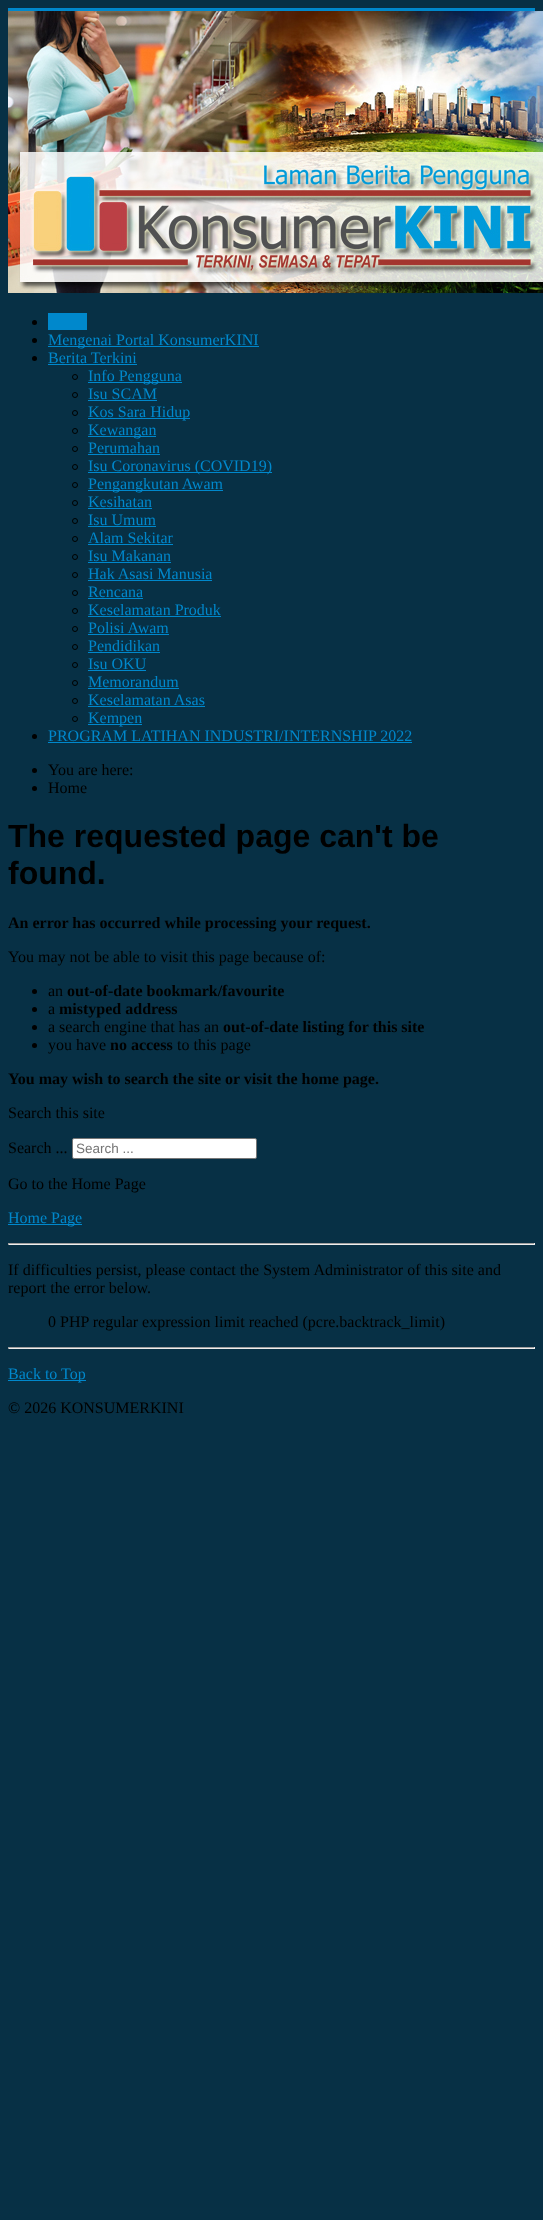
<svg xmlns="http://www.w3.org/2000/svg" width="543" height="2220">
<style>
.a{font:16px Liberation Serif;fill:#08c}
.b{font:16px Liberation Serif;fill:#000}
.c{font:bold 32px Liberation Sans;fill:#000}
.d{font:bold 16px Liberation Serif;fill:#000}
.e{font:13.5px Liberation Sans;fill:#757575}
</style>
<rect width="100%" height="100%" fill="#073045"/>
<path fill="#08c" d="M8 8h527v3H8z"/>
<image href="1.png" x="8" y="11" width="535" height="282"/>
<circle fill="#000" cx="34.5" cy="322.5" r="2.5"/>
<path fill="#08c" d="M48 313h39v17H48z"/>
<circle fill="#000" cx="34.5" cy="340.5" r="2.5"/>
<path fill="#08c" d="M48 346h211v1H48z"/>
<circle fill="#000" cx="34.5" cy="358.5" r="2.5"/>
<path fill="#08c" d="M48 364h89v1H48z"/>
<circle fill="none" stroke="#000" cx="75" cy="377" r="2.5"/>
<path fill="#08c" d="M88 382h94v1H88z"/>
<circle fill="none" stroke="#000" cx="75" cy="395" r="2.5"/>
<path fill="#08c" d="M88 400h69v1H88z"/>
<circle fill="none" stroke="#000" cx="75" cy="413" r="2.5"/>
<path fill="#08c" d="M88 418h102v1H88z"/>
<circle fill="none" stroke="#000" cx="75" cy="431" r="2.5"/>
<path fill="#08c" d="M88 436h68v1H88z"/>
<circle fill="none" stroke="#000" cx="75" cy="449" r="2.5"/>
<path fill="#08c" d="M88 454h72v1H88z"/>
<circle fill="none" stroke="#000" cx="75" cy="467" r="2.5"/>
<path fill="#08c" d="M88 472h184v1H88z"/>
<circle fill="none" stroke="#000" cx="75" cy="485" r="2.5"/>
<path fill="#08c" d="M88 490h135v1H88z"/>
<circle fill="none" stroke="#000" cx="75" cy="503" r="2.5"/>
<path fill="#08c" d="M88 508h64v1H88z"/>
<circle fill="none" stroke="#000" cx="75" cy="521" r="2.5"/>
<path fill="#08c" d="M88 526h68v1H88z"/>
<circle fill="none" stroke="#000" cx="75" cy="539" r="2.5"/>
<path fill="#08c" d="M88 544h85v1H88z"/>
<circle fill="none" stroke="#000" cx="75" cy="557" r="2.5"/>
<path fill="#08c" d="M88 562h83v1H88z"/>
<circle fill="none" stroke="#000" cx="75" cy="575" r="2.5"/>
<path fill="#08c" d="M88 580h124v1H88z"/>
<circle fill="none" stroke="#000" cx="75" cy="593" r="2.5"/>
<path fill="#08c" d="M88 598h55v1H88z"/>
<circle fill="none" stroke="#000" cx="75" cy="611" r="2.5"/>
<path fill="#08c" d="M88 616h133v1H88z"/>
<circle fill="none" stroke="#000" cx="75" cy="629" r="2.5"/>
<path fill="#08c" d="M88 634h81v1H88z"/>
<circle fill="none" stroke="#000" cx="75" cy="647" r="2.5"/>
<path fill="#08c" d="M88 652h72v1H88z"/>
<circle fill="none" stroke="#000" cx="75" cy="665" r="2.5"/>
<path fill="#08c" d="M88 670h58v1H88z"/>
<circle fill="none" stroke="#000" cx="75" cy="683" r="2.5"/>
<path fill="#08c" d="M88 688h91v1H88z"/>
<circle fill="none" stroke="#000" cx="75" cy="701" r="2.5"/>
<path fill="#08c" d="M88 706h117v1H88z"/>
<circle fill="none" stroke="#000" cx="75" cy="719" r="2.5"/>
<path fill="#08c" d="M88 724h54v1H88z"/>
<circle fill="#000" cx="34.5" cy="736.5" r="2.5"/>
<path fill="#08c" d="M48 742h364v1H48z"/>
<circle fill="#000" cx="34.5" cy="770.5" r="2.5"/>
<circle fill="#000" cx="34.5" cy="788.5" r="2.5"/>
<circle fill="#000" cx="34.5" cy="991.5" r="2.5"/>
<circle fill="#000" cx="34.5" cy="1009.5" r="2.5"/>
<circle fill="#000" cx="34.5" cy="1027.5" r="2.5"/>
<circle fill="#000" cx="34.5" cy="1045.5" r="2.5"/>
<rect fill="#fff" stroke="#767676" x="72.5" y="1138.5" width="184" height="20" rx="1.5"/>
<path fill="#08c" d="M8 1224h74v1H8z"/>
<path fill="#9f9f9f" d="M8 1243h527v1H8z"/>
<path fill="#eee" d="M534 1243h1v2H534z"/>
<path fill="#eee" d="M8 1244h527v1H8z"/>
<path fill="#9f9f9f" d="M8 1243h1v2H8z"/>
<path fill="#9f9f9f" d="M8 1347h527v1H8z"/>
<path fill="#eee" d="M534 1347h1v2H534z"/>
<path fill="#eee" d="M8 1348h527v1H8z"/>
<path fill="#9f9f9f" d="M8 1347h1v2H8z"/>
<path fill="#08c" d="M8 1380h78v1H8z"/>
<text class="a" x="48" y="345">Mengenai Portal KonsumerKINI</text>
<text class="a" x="48" y="363">Berita Terkini</text>
<text class="a" x="88" y="381">Info Pengguna</text>
<text class="a" x="88" y="399">Isu SCAM</text>
<text class="a" x="88" y="417">Kos Sara Hidup</text>
<text class="a" x="88" y="435">Kewangan</text>
<text class="a" x="88" y="453">Perumahan</text>
<text class="a" x="88" y="471">Isu Coronavirus (COVID19)</text>
<text class="a" x="88" y="489">Pengangkutan Awam</text>
<text class="a" x="88" y="507">Kesihatan</text>
<text class="a" x="88" y="525">Isu Umum</text>
<text class="a" x="88" y="543">Alam Sekitar</text>
<text class="a" x="88" y="561">Isu Makanan</text>
<text class="a" x="88" y="579">Hak Asasi Manusia</text>
<text class="a" x="88" y="597">Rencana</text>
<text class="a" x="88" y="615">Keselamatan Produk</text>
<text class="a" x="88" y="633">Polisi Awam</text>
<text class="a" x="88" y="651">Pendidikan</text>
<text class="a" x="88" y="669">Isu OKU</text>
<text class="a" x="88" y="687">Memorandum</text>
<text class="a" x="88" y="705">Keselamatan Asas</text>
<text class="a" x="88" y="723">Kempen</text>
<text class="a" x="48" y="741">PROGRAM LATIHAN INDUSTRI/INTERNSHIP 2022</text>
<text class="b" x="48" y="775">You are here:</text>
<text class="b" x="48" y="793">Home</text>
<text class="c" x="8" y="847">The requested page can't be</text>
<text class="c" x="8" y="884">found.</text>
<text class="d" x="8" y="928">An error has occurred while processing your request.</text>
<text class="b" x="8" y="962">You may not be able to visit this page because of:</text>
<text class="b" x="48" y="996">an</text>
<text class="d" x="67" y="996">out-of-date bookmark/favourite</text>
<text class="b" x="48" y="1014">a</text>
<text class="d" x="59" y="1014">mistyped address</text>
<text class="b" x="48" y="1032">a search engine that has an</text>
<text class="d" x="223" y="1032">out-of-date listing for this site</text>
<text class="b" x="48" y="1050">you have</text>
<text class="d" x="110" y="1050">no access</text>
<text class="b" x="177" y="1050">to this page</text>
<text class="d" x="8" y="1084">You may wish to search the site or visit the home page.</text>
<text class="b" x="8" y="1118">Search this site</text>
<text class="b" x="8" y="1153">Search ...</text>
<text class="e" x="76" y="1153">Search ...</text>
<text class="b" x="8" y="1189">Go to the Home Page</text>
<text class="a" x="8" y="1223">Home Page</text>
<text class="b" x="8" y="1275">If difficulties persist, please contact the System Administrator of this site and</text>
<text class="b" x="8" y="1293">report the error below.</text>
<text class="b" x="48" y="1327">0 PHP regular expression limit reached (pcre.backtrack_limit)</text>
<text class="a" x="8" y="1379">Back to Top</text>
<text class="b" x="8" y="1413">© 2026 KONSUMERKINI</text>
</svg>
